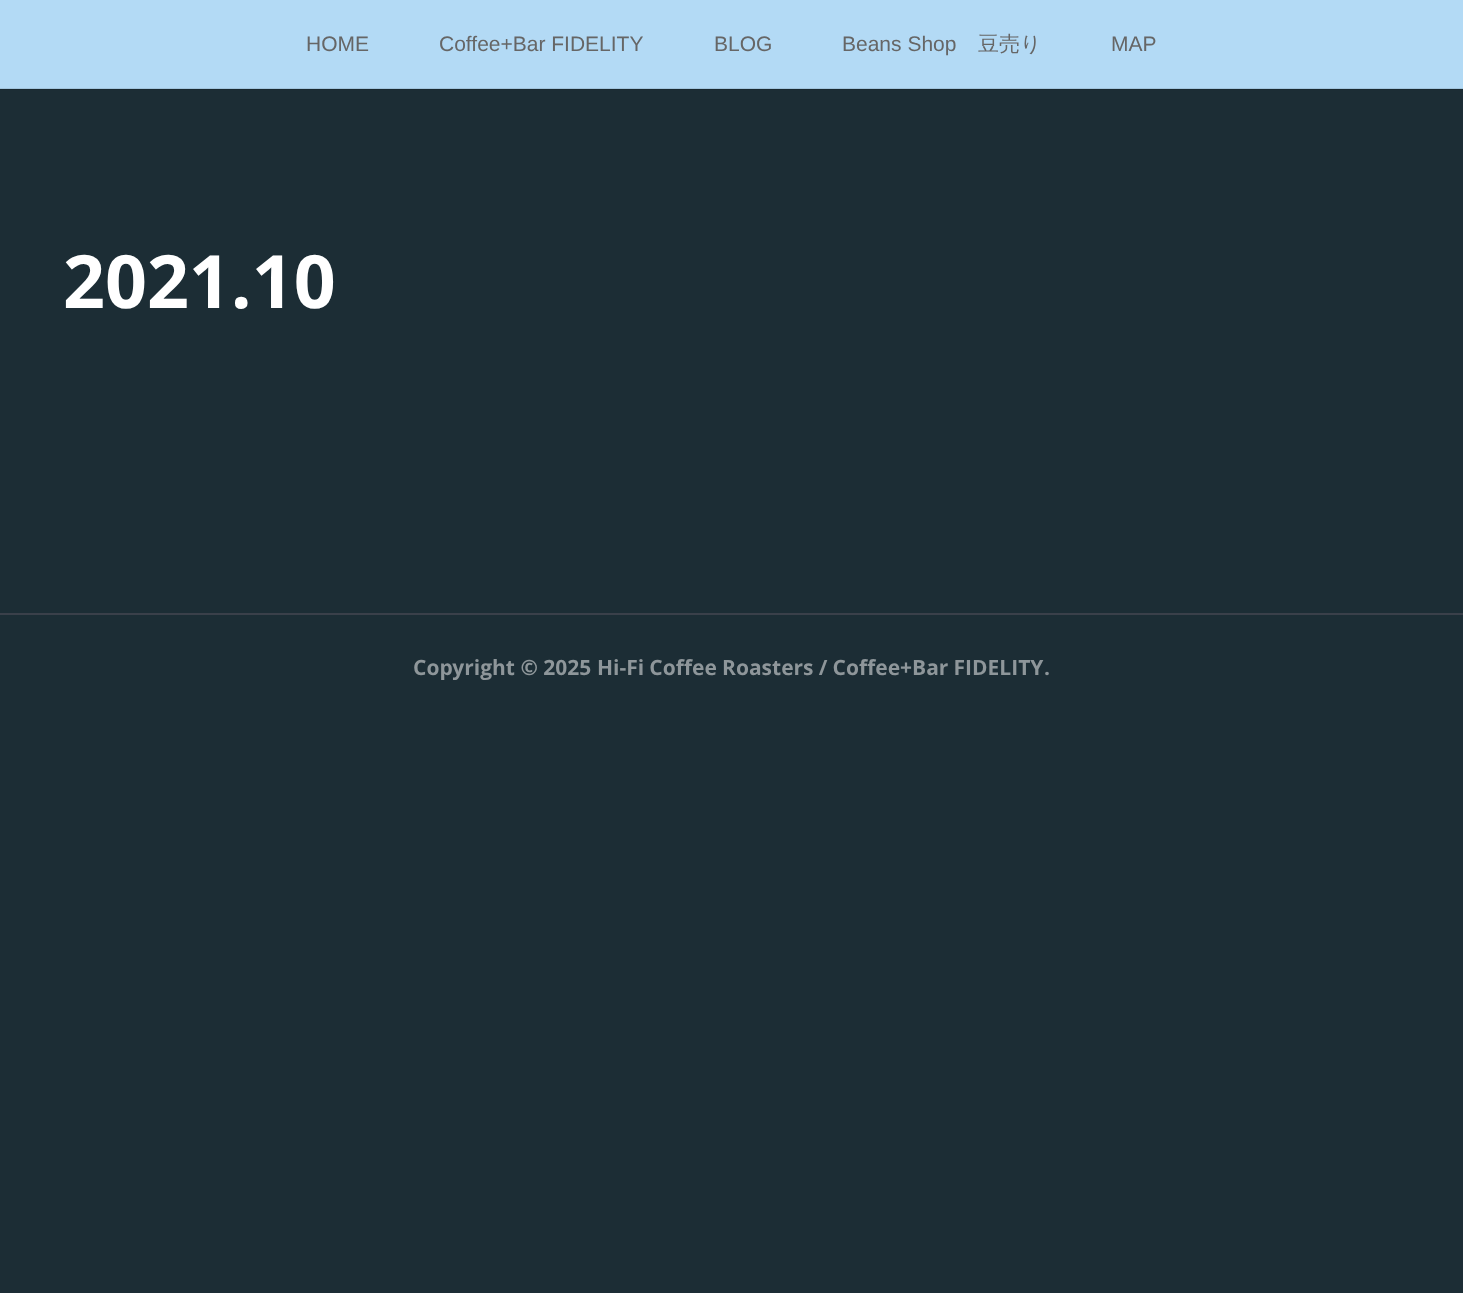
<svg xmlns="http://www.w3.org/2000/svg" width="1463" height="1293">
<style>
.a{font:21px Liberation Sans;fill:#666}
.b{font:500 21px WenQuanYi Zen Hei;fill:#666}
.c{font:bold 73.5px Open Sans;fill:#fff}
.d{font:bold 21px Open Sans;fill:#8e969a}
</style>
<rect width="100%" height="100%" fill="#1c2d35"/>
<path fill="#192930" d="M0 89h1463v1H0z"/>
<path fill="#b3daf5" d="M0 0h1463v88H0z"/>
<path fill="#a1c4dd" d="M0 88h1463v1H0z"/>
<path fill="#3a404a" d="M0 613h1463v2H0z"/>
<text class="a" x="306" y="51">HOME</text>
<text class="a" x="439" y="51">Coffee+Bar FIDELITY</text>
<text class="a" x="714" y="51">BLOG</text>
<text class="a" x="842" y="51">Beans Shop</text>
<text class="b" x="978" y="51">豆売り</text>
<text class="a" x="1111" y="51">MAP</text>
<text class="c" x="63" y="308">2021.10</text>
<text class="d" x="413" y="675">Copyright © 2025</text>
<text class="d" x="597" y="675" word-spacing="-0.25">Hi-Fi Coffee Roasters / Coffee+Bar FIDELITY</text>
<text class="d" x="1044" y="675">.</text>
</svg>
